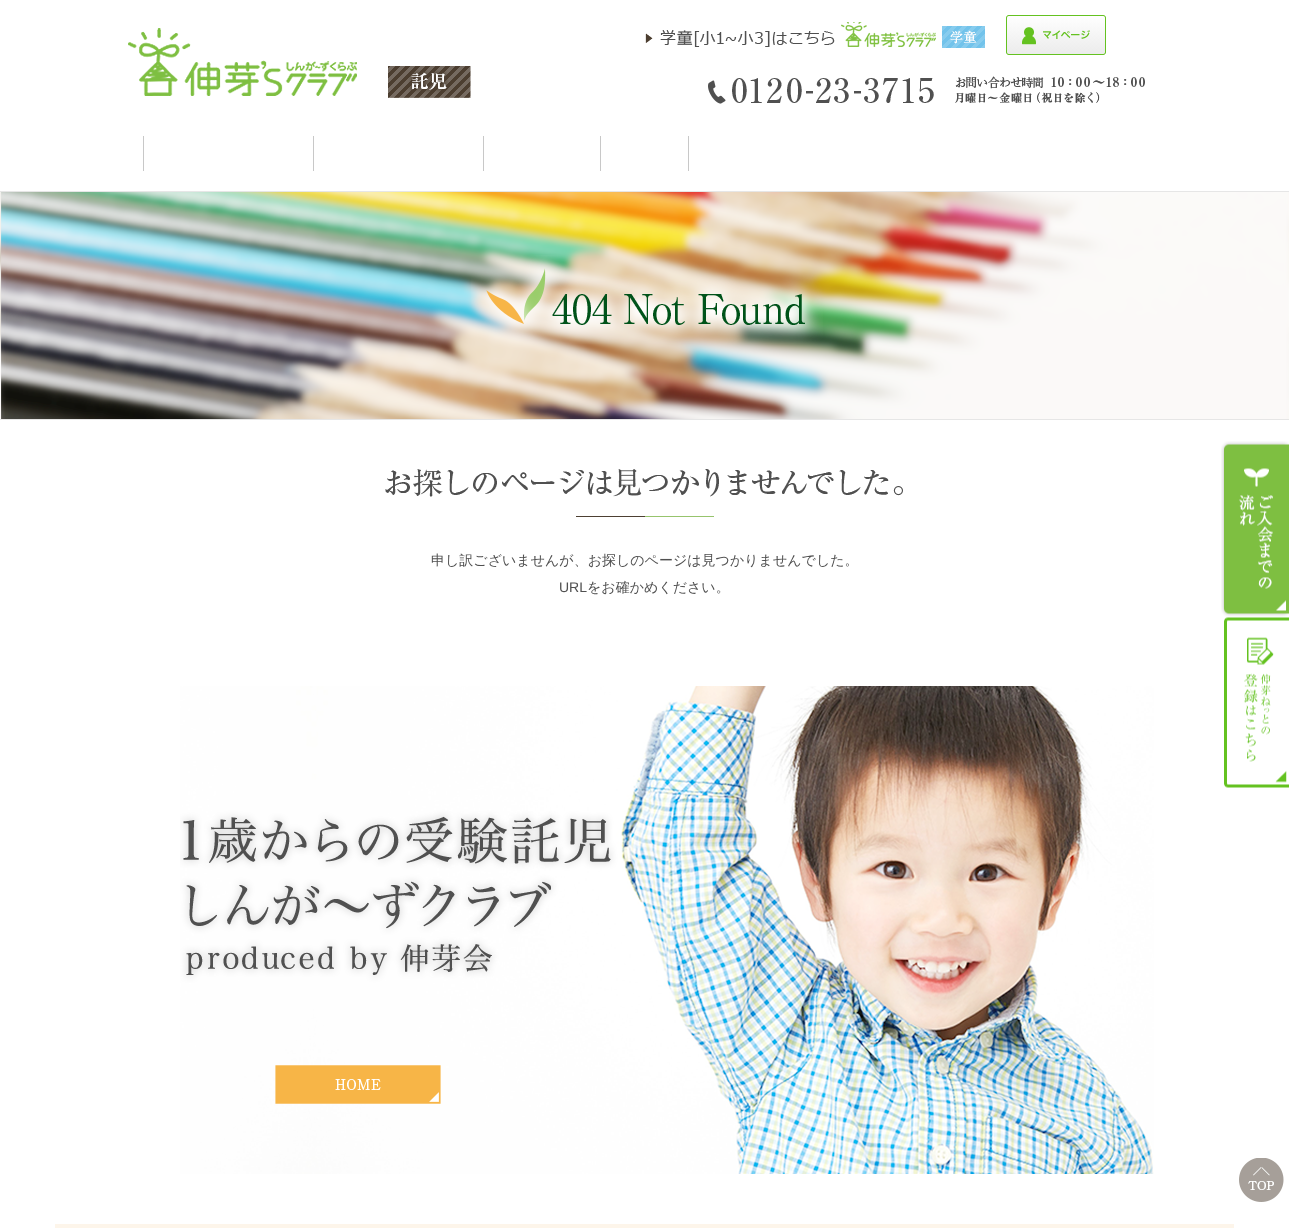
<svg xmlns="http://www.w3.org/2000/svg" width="1289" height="1228">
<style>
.a{font:500 14px WenQuanYi Zen Hei;fill:#505050}
.b{font:14px Liberation Sans;fill:#505050}
</style>
<rect width="100%" height="100%" fill="#fff"/>
<image href="1.png" x="128" y="28" width="229" height="68"/>
<image href="2.png" x="388" y="66" width="83" height="32"/>
<image href="3.png" x="645" y="22" width="340" height="26"/>
<image href="4.png" x="1006" y="15" width="100" height="40"/>
<image href="5.png" x="708" y="76" width="437" height="28"/>
<path fill="#c8c8c8" d="M143 136h1v35H143z"/>
<path fill="#c8c8c8" d="M313 136h1v35H313z"/>
<path fill="#c8c8c8" d="M483 136h1v35H483z"/>
<path fill="#c8c8c8" d="M600 136h1v35H600z"/>
<path fill="#c8c8c8" d="M688 136h1v35H688z"/>
<image href="6.png" x="0" y="192" width="1289" height="227"/>
<path fill="#e6e6e6" d="M0 191h1289v1H0z"/>
<path fill="#e6e6e6" d="M0 419h1289v1H0z"/>
<image href="7.png" x="471" y="255" width="352" height="89"/>
<image href="8.png" x="385" y="469" width="518" height="28"/>
<path fill="#4d4033" d="M576 516h69v1H576z"/>
<path fill="#97c46d" d="M645 516h69v1H645z"/>
<image href="9.png" x="180" y="686" width="974" height="488"/>
<image href="10.png" x="275" y="1065" width="166" height="39"/>
<path fill="#fdf5ea" d="M55 1224h1179v4H55z"/>
<image href="11.png" x="1221" y="441" width="68" height="176"/>
<image href="12.png" x="1224" y="617" width="65" height="171"/>
<image href="13.png" x="1239" y="1158" width="45" height="44"/>
<text class="a" x="431" y="565">申し訳ございませんが、お探しのページは見つかりませんでした。</text>
<text class="b" x="559" y="592">URL</text>
<text class="a" x="587" y="592">をお確かめください。</text>
</svg>
